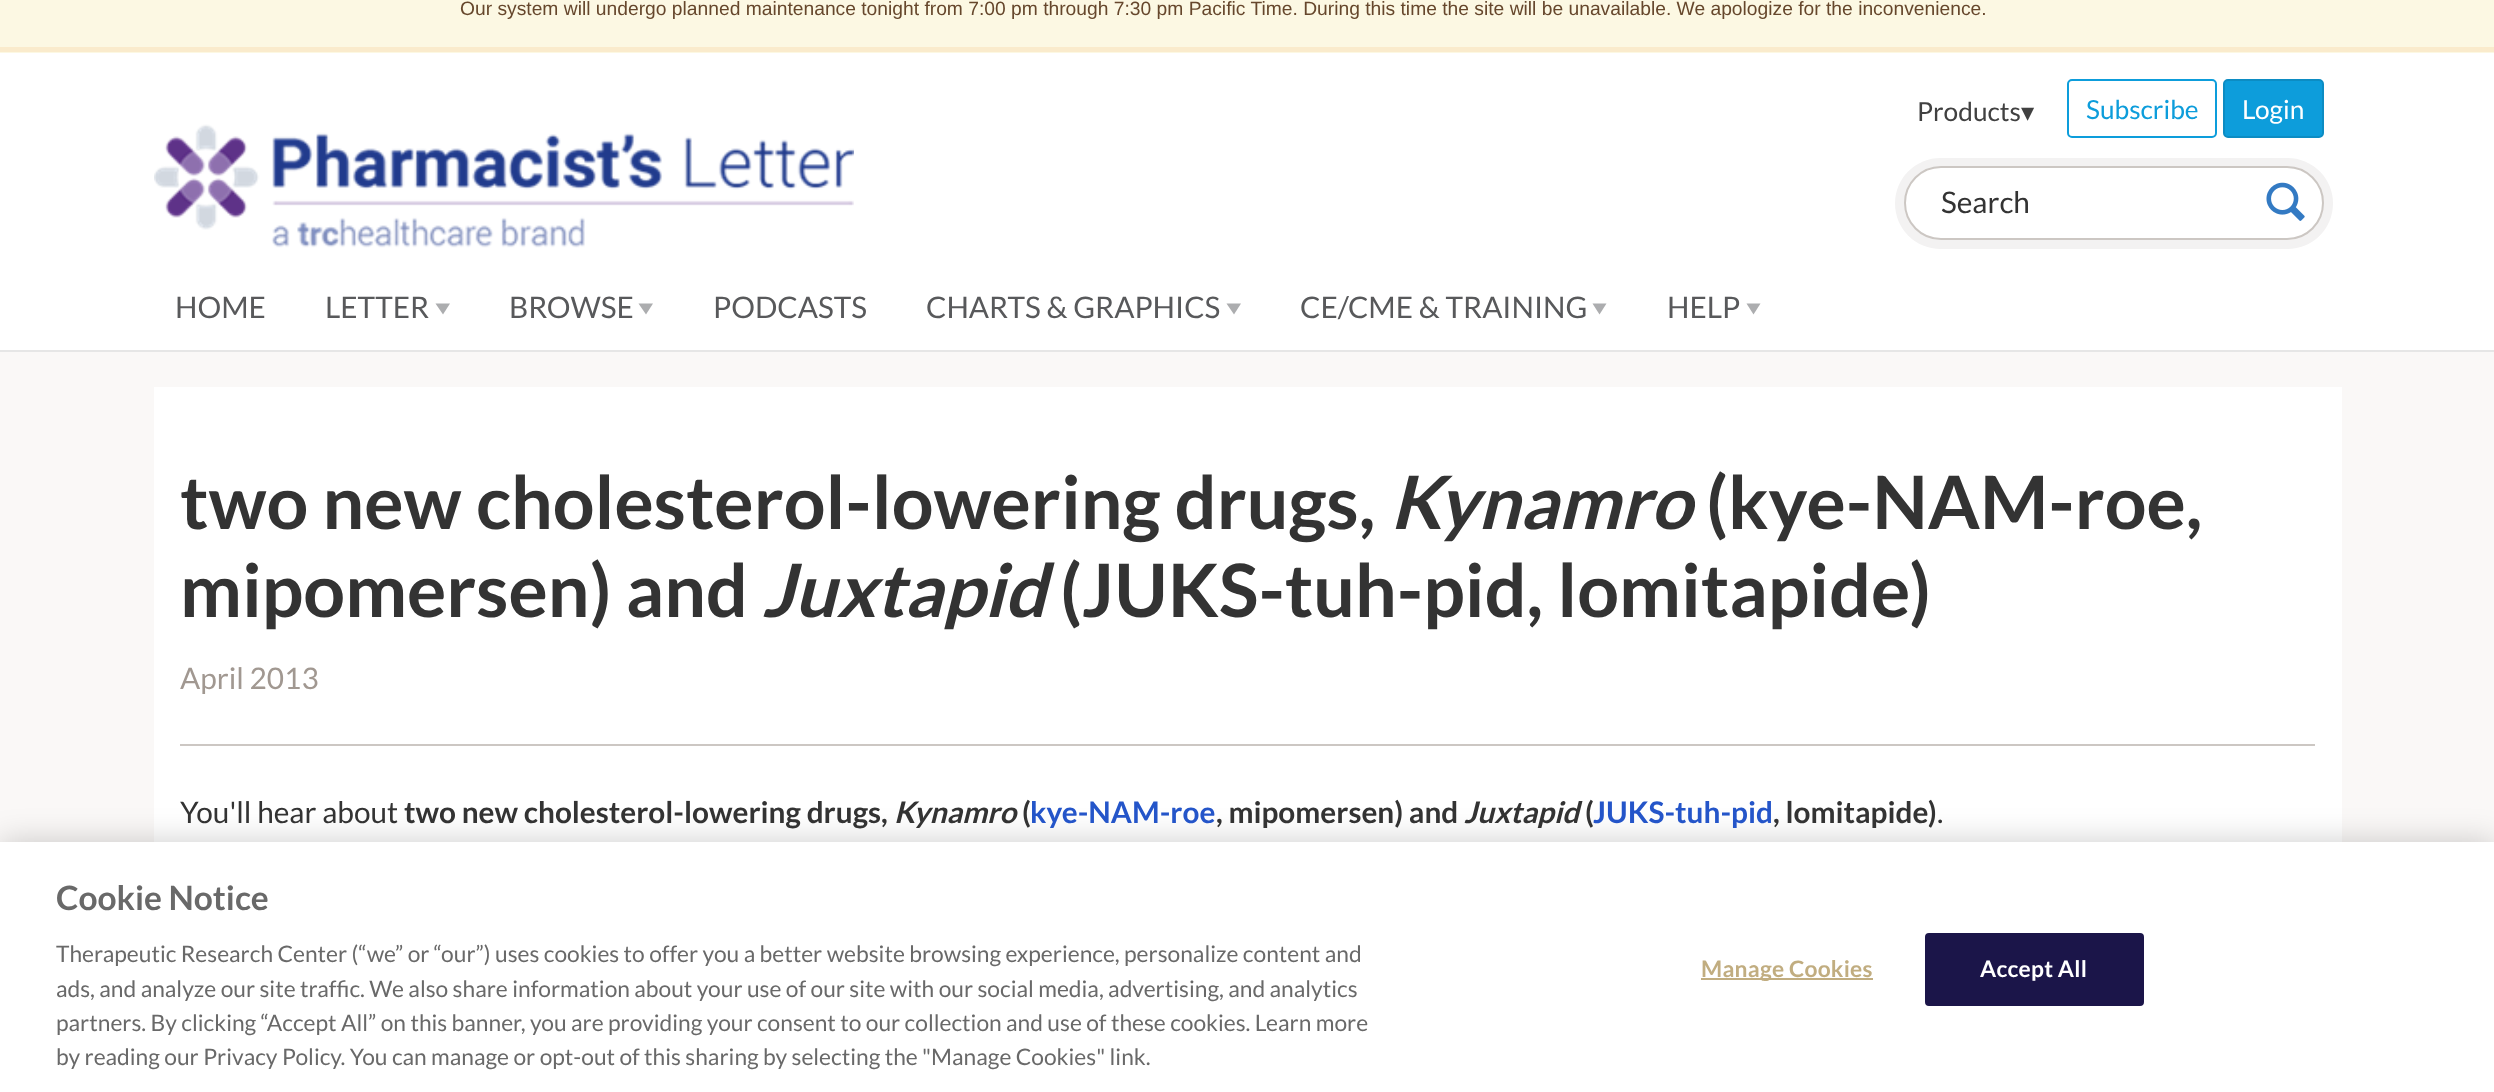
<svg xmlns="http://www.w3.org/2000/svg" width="2494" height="1092">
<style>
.a{font:19.25px Liberation Sans;fill:#66472c}
.b{font:26.25px Lato;fill:#414141}
.c{font:26.25px DejaVu Sans;fill:#414141}
.d{font:26.25px Lato;fill:#0d9ddb}
.e{font:26.25px Lato;fill:#fff}
.f{font:29.75px Lato;fill:#58595b}
.g{font:29.75px Lato;fill:#333}
.h{font:bold 73.5px Lato;fill:#333}
.i{font:italic bold 73.5px Lato;fill:#333}
.j{font:29.75px Lato;fill:#a19891}
.k{font:bold 29.75px Lato;fill:#333}
.l{font:italic bold 29.75px Lato;fill:#333}
.m{font:bold 29.75px Lato;fill:#2455c9}
.n{font:bold 33.5px Lato;fill:#696969}
.o{font:22.75px Lato;fill:#696969}
.p{font:bold 22.75px Lato;letter-spacing:0.25px;fill:#c1ad80}
.q{font:bold 22.75px Lato;letter-spacing:0.25px;fill:#fff}
</style>
<rect width="100%" height="100%" fill="#faf8f7"/>
<path fill="#fcf8e3" d="M0 0h2494v53H0z"/>
<path fill="#faebcc" d="M0 47h2494v5H0z"/>
<path fill="#fff" d="M0 53h2494v297H0z"/>
<path fill="#e6e6e6" d="M0 350h2494v2H0z"/>
<rect fill="none" stroke="#0d9ddb" stroke-width="2" x="2068" y="80" width="148" height="57" rx="4"/>
<rect fill="#0d9ddb" stroke="#0c8cc3" stroke-width="2" x="2224" y="80" width="99" height="57" rx="4"/>
<path fill="#acadaf" d="M435.5 303.5h14.5l-7 11z"/>
<path fill="#acadaf" d="M638.5 303.5h14.5l-7 11z"/>
<path fill="#acadaf" d="M1226.5 303.5h14.5l-7 11z"/>
<path fill="#acadaf" d="M1592.5 303.5h14l-7 11z"/>
<path fill="#acadaf" d="M1746.5 303.5h14l-7 11z"/>
<rect fill="#f3f2f2" x="1895" y="158" width="438" height="91" rx="45.5"/>
<rect fill="#fff" stroke="#ccc7c3" stroke-width="2" x="1905" y="167" width="418" height="72" rx="36"/>
<image href="1.png" x="2266" y="182" width="39" height="39"/>
<image href="2.png" x="154" y="124" width="700" height="124"/>
<path fill="#fff" d="M154 387h2188v455H154z"/>
<path fill="#ccc7c3" d="M180 744h2135v2H180z"/>
<path fill="#00000033" filter="blur(16px)" d="M0 842h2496v250H0z"/>
<path fill="#fff" d="M0 842h2494v250H0z"/>
<path fill="#c1ad80" d="M1701 978h172v2H1701z"/>
<rect fill="#1b1549" stroke="#1b1549" stroke-width="2" x="1926" y="934" width="217" height="71" rx="3"/>
<text class="a" x="460" y="15">Our system will undergo planned maintenance tonight from 7:00 pm through 7:30 pm Pacific Time. During this time the site will be unavailable. We apologize for the inconvenience.</text>
<text class="b" x="1917" y="121">Products</text>
<text class="c" x="2021" y="121">▾</text>
<text class="d" x="2086" y="119">Subscribe</text>
<text class="e" x="2242" y="119">Login</text>
<text class="f" x="175" y="318">HOME</text>
<text class="f" x="325" y="318">LETTER</text>
<text class="f" x="509" y="318">BROWSE</text>
<text class="f" x="713" y="318">PODCASTS</text>
<text class="f" x="926" y="318">CHARTS &amp; GRAPHICS</text>
<text class="f" x="1300" y="318">CE/CME &amp; TRAINING</text>
<text class="f" x="1667" y="318">HELP</text>
<text class="g" x="1941" y="213">Search</text>
<text class="h" x="180" y="529">two new cholesterol-lowering drugs,</text>
<text class="i" x="1390" y="529">Kynamro</text>
<text class="h" x="1706" y="529">(kye-NAM-roe,</text>
<text class="h" x="180" y="617">mipomersen) and</text>
<text class="i" x="762" y="617">Juxtapid</text>
<text class="h" x="1060" y="617">(JUKS-tuh-pid, lomitapide)</text>
<text class="j" x="180" y="689">April 2013</text>
<text class="g" x="180" y="823">You'll hear about</text>
<text class="k" x="404" y="823">two new cholesterol-lowering drugs,</text>
<text class="l" x="894" y="823">Kynamro</text>
<text class="k" x="1022" y="823">(</text>
<text class="m" x="1030" y="823">kye-NAM-roe</text>
<text class="k" x="1216" y="823">, mipomersen) and</text>
<text class="l" x="1464" y="823">Juxtapid</text>
<text class="k" x="1585" y="823">(</text>
<text class="m" x="1593" y="823">JUKS-tuh-pid</text>
<text class="k" x="1773" y="823">, lomitapide)</text>
<text class="g" x="1937" y="823">.</text>
<text class="n" x="56" y="910">Cookie Notice</text>
<text class="o" x="56" y="962">Therapeutic Research Center (“we” or “our”) uses cookies to offer you a better website browsing experience, personalize content and</text>
<text class="o" x="56" y="997">ads, and analyze our site traffic. We also share information about your use of our site with our social media, advertising, and analytics</text>
<text class="o" x="56" y="1031">partners. By clicking “Accept All” on this banner, you are providing your consent to our collection and use of these cookies. Learn more</text>
<text class="o" x="56" y="1065">by reading our Privacy Policy. You can manage or opt-out of this sharing by selecting the "Manage Cookies" link.</text>
<text class="p" x="1701" y="977">Manage Cookies</text>
<text class="q" x="1980" y="977">Accept All</text>
</svg>
